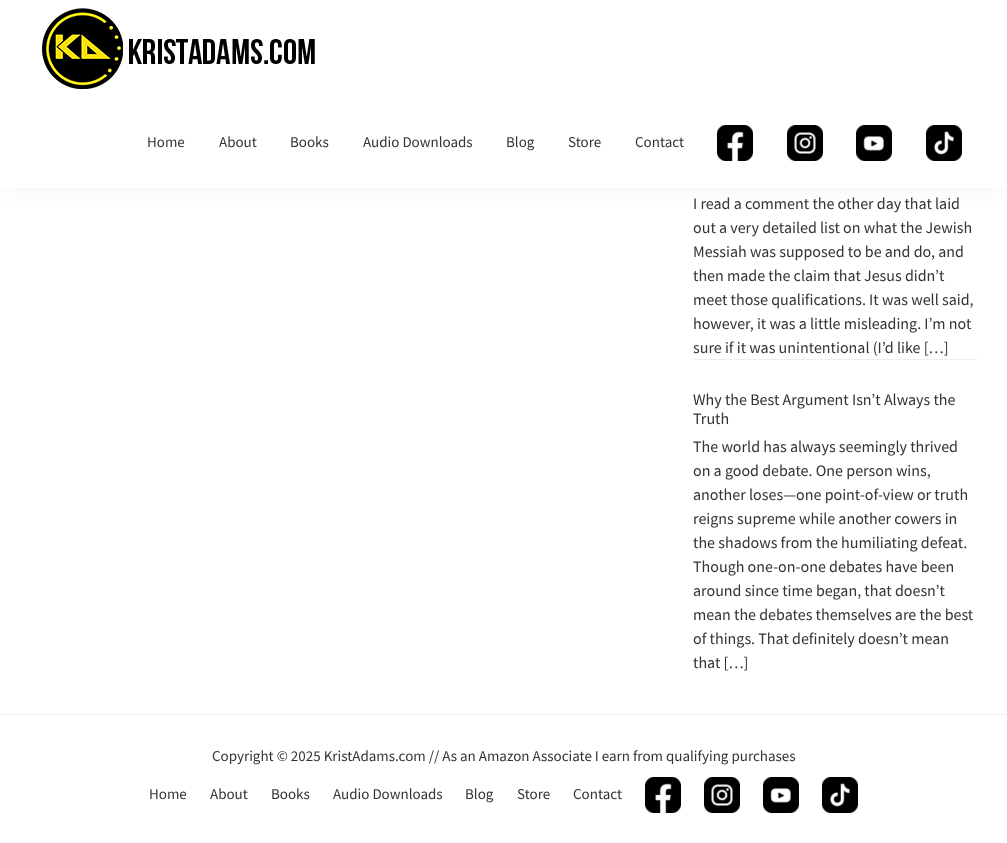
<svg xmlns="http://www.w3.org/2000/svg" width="1007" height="843">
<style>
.a{font:15px Source Sans Pro;fill:#333}
.b{font:16px Source Sans Pro;fill:#333}
</style>
<rect width="100%" height="100%" fill="#fff"/>
<path fill="#0000000d" filter="blur(10px)" d="M0 0h1007v188H0z"/>
<path fill="#fff" d="M0 0h1007v188H0z"/>
<image href="1.png" x="42" y="8" width="273" height="81"/>
<image href="2.png" x="717" y="125" width="36" height="36"/>
<image href="3.png" x="787" y="125" width="36" height="36"/>
<image href="4.png" x="856" y="125" width="36" height="36"/>
<image href="5.png" x="926" y="125" width="36" height="36"/>
<path fill="#eee" d="M693 359h284v1H693z"/>
<path fill="#eee" d="M0 714h1007v1H0z"/>
<image href="2.png" x="645" y="777" width="36" height="36"/>
<image href="3.png" x="704" y="777" width="36" height="36"/>
<image href="4.png" x="763" y="777" width="36" height="36"/>
<image href="5.png" x="822" y="777" width="36" height="36"/>
<text class="a" x="147" y="147">Home</text>
<text class="a" x="219" y="147">About</text>
<text class="a" x="290" y="147">Books</text>
<text class="a" x="363" y="147">Audio Downloads</text>
<text class="a" x="506" y="147">Blog</text>
<text class="a" x="568" y="147">Store</text>
<text class="a" x="635" y="147">Contact</text>
<text class="b" x="693" y="209">I read a comment the other day that laid</text>
<text class="b" x="693" y="233">out a very detailed list on what the Jewish</text>
<text class="b" x="693" y="257">Messiah was supposed to be and do, and</text>
<text class="b" x="693" y="281">then made the claim that Jesus didn’t</text>
<text class="b" x="693" y="305">meet those qualifications. It was well said,</text>
<text class="b" x="693" y="329">however, it was a little misleading. I’m not</text>
<text class="b" x="693" y="353">sure if it was unintentional (I’d like […]</text>
<text class="b" x="693" y="405">Why the Best Argument Isn’t Always the</text>
<text class="b" x="693" y="424">Truth</text>
<text class="b" x="693" y="452">The world has always seemingly thrived</text>
<text class="b" x="693" y="476">on a good debate. One person wins,</text>
<text class="b" x="693" y="500">another loses—one point-of-view or truth</text>
<text class="b" x="693" y="524">reigns supreme while another cowers in</text>
<text class="b" x="693" y="548">the shadows from the humiliating defeat.</text>
<text class="b" x="693" y="572">Though one-on-one debates have been</text>
<text class="b" x="693" y="596">around since time began, that doesn’t</text>
<text class="b" x="693" y="620">mean the debates themselves are the best</text>
<text class="b" x="693" y="644">of things. That definitely doesn’t mean</text>
<text class="b" x="693" y="668">that […]</text>
<text class="a" x="212" y="761">Copyright © 2025 KristAdams.com // As an Amazon Associate I earn from qualifying purchases</text>
<text class="a" x="149" y="799">Home</text>
<text class="a" x="210" y="799">About</text>
<text class="a" x="271" y="799">Books</text>
<text class="a" x="333" y="799">Audio Downloads</text>
<text class="a" x="465" y="799">Blog</text>
<text class="a" x="517" y="799">Store</text>
<text class="a" x="573" y="799">Contact</text>
</svg>
